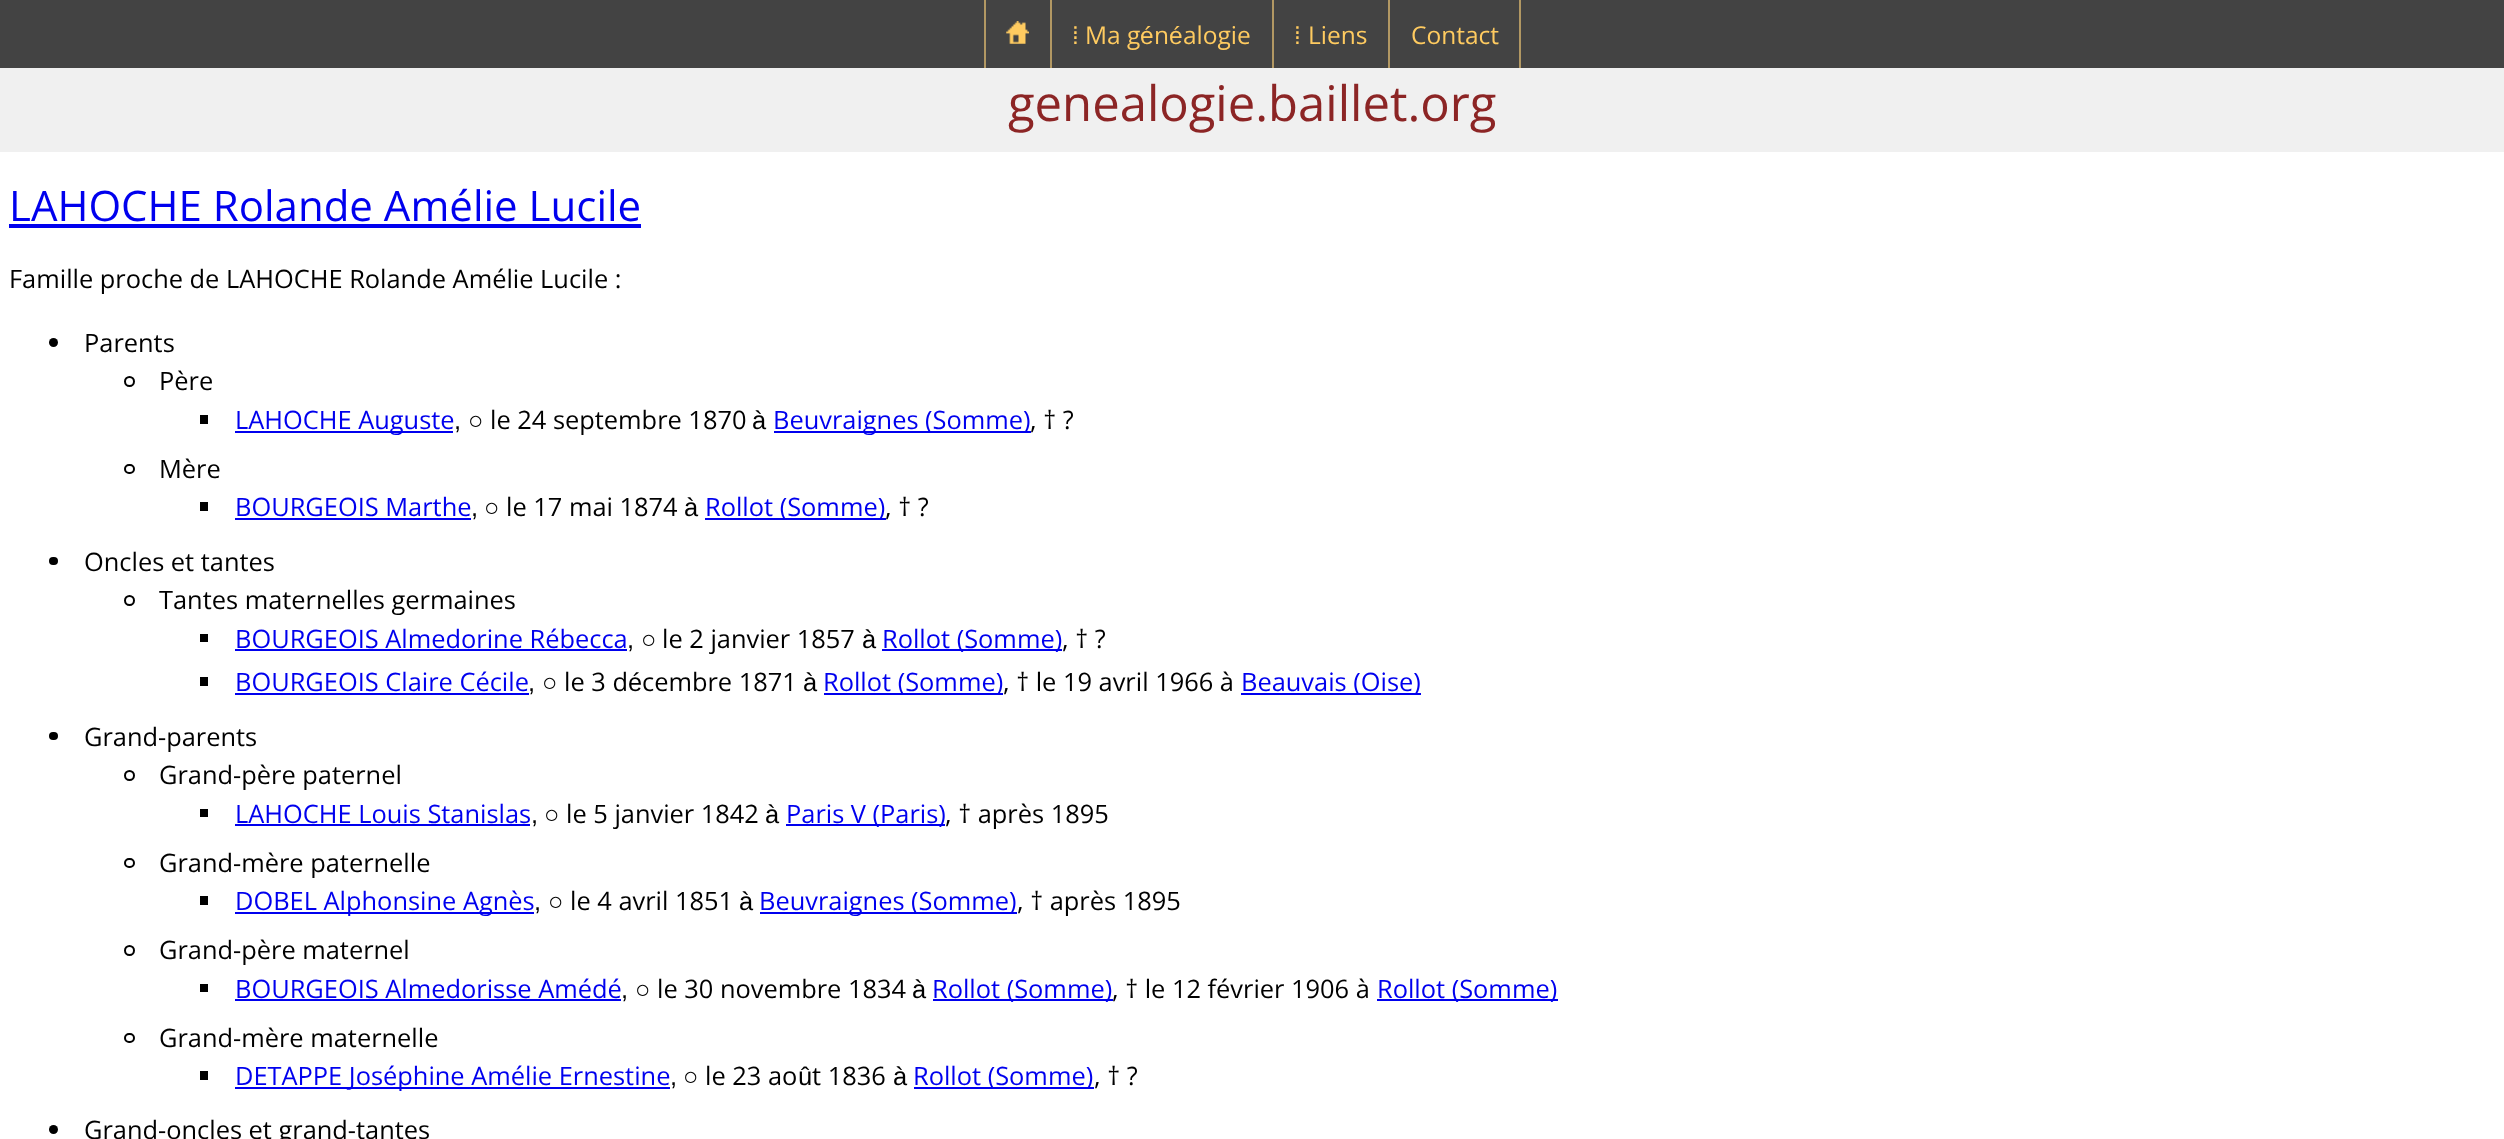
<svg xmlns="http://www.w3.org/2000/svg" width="2504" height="1139">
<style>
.a{font:24.5px Liberation Sans;fill:#ffcb60}
.b{font:24.5px Open Sans;fill:#ffcb60}
.c{font:49px Open Sans;fill:#8c2525}
.d{font:42px Open Sans;fill:#00e}
.e{font:25.4px Open Sans;fill:#000}
.f{font:25.4px Open Sans;fill:#00e}
.g{font:25.4px Liberation Sans;fill:#000}
</style>
<rect width="100%" height="100%" fill="#434343"/>
<path fill="#b29863" d="M984 0h2v68H984z"/>
<image href="1.png" x="1006" y="21" width="23" height="23"/>
<path fill="#b29863" d="M1050 0h2v68H1050z"/>
<path fill="#b29863" d="M1272 0h2v68H1272z"/>
<path fill="#b29863" d="M1519 0h2v68H1519z"/>
<path fill="#b29863" d="M1388 0h2v68H1388z"/>
<path fill="#f0f0f0" d="M0 68h2504v84H0z"/>
<path fill="#fff" d="M0 152h2504v987H0z"/>
<path fill="#00e" d="M9 224h632v4H9z"/>
<circle fill="#000" cx="53.5" cy="342.5" r="4.5"/>
<circle fill="none" stroke="#000" stroke-width="2" cx="129.5" cy="381.5" r="4.5"/>
<path fill="#000" d="M200 415h8v9H200z"/>
<path fill="#00e" d="M235 431h218v2H235z"/>
<path fill="#00e" d="M774 431h257v2H774z"/>
<rect fill="none" stroke="#000" stroke-width="2" x="125" y="465" width="9" height="8" rx="4"/>
<path fill="#000" d="M200 502h8v9H200z"/>
<path fill="#00e" d="M235 518h236v2H235z"/>
<path fill="#00e" d="M705 518h181v2H705z"/>
<rect fill="#000" x="49" y="557" width="9" height="8" rx="4"/>
<circle fill="none" stroke="#000" stroke-width="2" cx="129.5" cy="600.5" r="4.5"/>
<path fill="#000" d="M200 634h8v8H200z"/>
<path fill="#00e" d="M235 649h392v2H235z"/>
<path fill="#00e" d="M882 649h180v2H882z"/>
<path fill="#000" d="M200 677h8v9H200z"/>
<path fill="#00e" d="M235 693h294v2H235z"/>
<path fill="#00e" d="M824 693h179v2H824z"/>
<path fill="#00e" d="M1241 693h180v2H1241z"/>
<rect fill="#000" x="49" y="732" width="9" height="8" rx="4"/>
<circle fill="none" stroke="#000" stroke-width="2" cx="129.5" cy="775.5" r="4.5"/>
<path fill="#000" d="M200 809h8v8H200z"/>
<path fill="#00e" d="M235 824h295v2H235z"/>
<path fill="#00e" d="M786 824h159v2H786z"/>
<rect fill="none" stroke="#000" stroke-width="2" x="125" y="859" width="9" height="8" rx="4"/>
<path fill="#000" d="M200 896h8v9H200z"/>
<path fill="#00e" d="M235 912h299v2H235z"/>
<path fill="#00e" d="M760 912h257v2H760z"/>
<circle fill="none" stroke="#000" stroke-width="2" cx="129.5" cy="950.5" r="4.5"/>
<path fill="#000" d="M200 984h8v8H200z"/>
<path fill="#00e" d="M235 999h386v2H235z"/>
<path fill="#00e" d="M933 999h180v2H933z"/>
<path fill="#00e" d="M1377 999h181v2H1377z"/>
<rect fill="none" stroke="#000" stroke-width="2" x="125" y="1034" width="9" height="8" rx="4"/>
<path fill="#000" d="M200 1071h8v9H200z"/>
<path fill="#00e" d="M235 1087h435v2H235z"/>
<path fill="#00e" d="M914 1087h180v2H914z"/>
<circle fill="#000" cx="53.5" cy="1129.5" r="4.5"/>
<text class="a" x="1072" y="44">⁞</text>
<text class="b" x="1085" y="44">Ma g</text>
<text class="a" x="1140" y="44">é</text>
<text class="b" x="1154" y="44">n</text>
<text class="a" x="1169" y="44">é</text>
<text class="b" x="1183" y="44">alogie</text>
<text class="a" x="1294" y="44">⁞</text>
<text class="b" x="1308" y="44">Liens</text>
<text class="b" x="1411" y="44">Contact</text>
<text class="c" x="1008" y="121">genealogie.baillet.org</text>
<text class="d" x="9" y="221">LAHOCHE Rolande Amélie Lucile</text>
<text class="e" x="9" y="288">Famille proche de LAHOCHE Rolande Amélie Lucile :</text>
<text class="e" x="84" y="352">Parents</text>
<text class="e" x="159" y="390">Père</text>
<text class="f" x="235" y="429">LAHOCHE Auguste</text>
<text class="g" x="468" y="429">○</text>
<text class="e" x="490" y="429">le 24 septembre 1870</text>
<text class="g" x="752" y="429">à</text>
<text class="f" x="773" y="429">Beuvraignes (Somme)</text>
<text class="e" x="1030" y="429">, † ?</text>
<text class="g" x="454" y="429">,</text>
<text class="e" x="159" y="478">Mère</text>
<text class="f" x="235" y="516">BOURGEOIS Marthe</text>
<text class="g" x="484" y="516">○</text>
<text class="e" x="506" y="516">le 17 mai 1874</text>
<text class="g" x="684" y="516">à</text>
<text class="f" x="705" y="516">Rollot (Somme)</text>
<text class="e" x="885" y="516">, † ?</text>
<text class="g" x="471" y="516">,</text>
<text class="e" x="84" y="571">Oncles et tantes</text>
<text class="e" x="159" y="609">Tantes maternelles germaines</text>
<text class="f" x="235" y="648">BOURGEOIS Almedorine Rébecca</text>
<text class="g" x="641" y="648">○</text>
<text class="e" x="662" y="648">le 2 janvier 1857</text>
<text class="g" x="862" y="648">à</text>
<text class="f" x="882" y="648">Rollot (Somme)</text>
<text class="e" x="1062" y="648">, † ?</text>
<text class="g" x="627" y="648">,</text>
<text class="f" x="235" y="691">BOURGEOIS Claire Cécile</text>
<text class="g" x="542" y="691">○</text>
<text class="e" x="564" y="691">le 3 d</text>
<text class="g" x="628" y="691">é</text>
<text class="e" x="642" y="691">cembre 1871</text>
<text class="g" x="803" y="691">à</text>
<text class="f" x="823" y="691">Rollot (Somme)</text>
<text class="e" x="1003" y="691">, † le 19 avril 1966 à</text>
<text class="f" x="1241" y="691">Beauvais (Oise)</text>
<text class="g" x="528" y="691">,</text>
<text class="e" x="84" y="746">Grand-parents</text>
<text class="e" x="159" y="784">Grand-père paternel</text>
<text class="f" x="235" y="823">LAHOCHE Louis Stanislas</text>
<text class="g" x="544" y="823">○</text>
<text class="e" x="566" y="823">le 5 janvier 1842</text>
<text class="g" x="765" y="823">à</text>
<text class="f" x="786" y="823">Paris V (Paris)</text>
<text class="e" x="945" y="823">, † après 1895</text>
<text class="g" x="531" y="823">,</text>
<text class="e" x="159" y="872">Grand-mère paternelle</text>
<text class="f" x="235" y="910">DOBEL Alphonsine Agnès</text>
<text class="g" x="548" y="910">○</text>
<text class="e" x="570" y="910">le 4 avril 1851</text>
<text class="g" x="739" y="910">à</text>
<text class="f" x="759" y="910">Beuvraignes (Somme)</text>
<text class="e" x="1017" y="910">, † après 1895</text>
<text class="g" x="534" y="910">,</text>
<text class="e" x="159" y="959">Grand-père maternel</text>
<text class="f" x="235" y="998">BOURGEOIS Almedorisse Amédé</text>
<text class="g" x="635" y="998">○</text>
<text class="e" x="657" y="998">le 30 novembre 1834</text>
<text class="g" x="912" y="998">à</text>
<text class="f" x="932" y="998">Rollot (Somme)</text>
<text class="e" x="1112" y="998">, † le 12 février 1906 à</text>
<text class="f" x="1377" y="998">Rollot (Somme)</text>
<text class="g" x="621" y="998">,</text>
<text class="e" x="159" y="1047">Grand-mère maternelle</text>
<text class="f" x="235" y="1085">DETAPPE Joséphine Amélie Ernestine</text>
<text class="g" x="683" y="1085">○</text>
<text class="e" x="705" y="1085">le 23 ao</text>
<text class="g" x="798" y="1085">û</text>
<text class="e" x="812" y="1085">t 1836</text>
<text class="g" x="893" y="1085">à</text>
<text class="f" x="913" y="1085">Rollot (Somme)</text>
<text class="e" x="1094" y="1085">, † ?</text>
<text class="g" x="670" y="1085">,</text>
<text class="e" x="84" y="1139">Grand-oncles et grand-tantes</text>
</svg>
